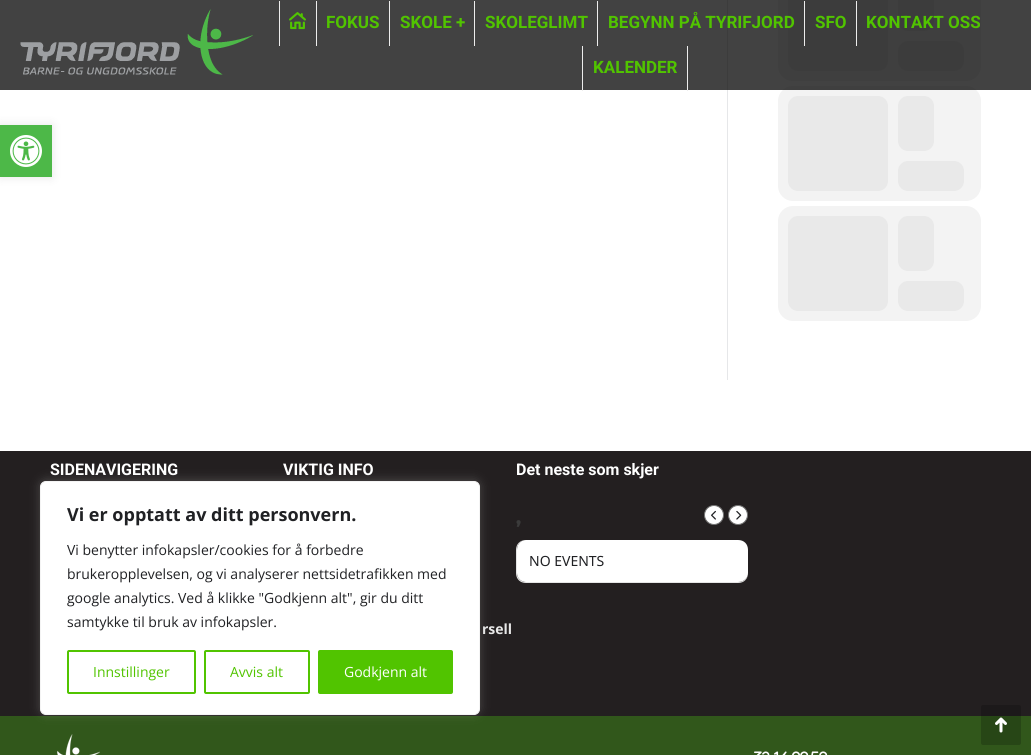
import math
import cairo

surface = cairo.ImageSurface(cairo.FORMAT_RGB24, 1031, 755)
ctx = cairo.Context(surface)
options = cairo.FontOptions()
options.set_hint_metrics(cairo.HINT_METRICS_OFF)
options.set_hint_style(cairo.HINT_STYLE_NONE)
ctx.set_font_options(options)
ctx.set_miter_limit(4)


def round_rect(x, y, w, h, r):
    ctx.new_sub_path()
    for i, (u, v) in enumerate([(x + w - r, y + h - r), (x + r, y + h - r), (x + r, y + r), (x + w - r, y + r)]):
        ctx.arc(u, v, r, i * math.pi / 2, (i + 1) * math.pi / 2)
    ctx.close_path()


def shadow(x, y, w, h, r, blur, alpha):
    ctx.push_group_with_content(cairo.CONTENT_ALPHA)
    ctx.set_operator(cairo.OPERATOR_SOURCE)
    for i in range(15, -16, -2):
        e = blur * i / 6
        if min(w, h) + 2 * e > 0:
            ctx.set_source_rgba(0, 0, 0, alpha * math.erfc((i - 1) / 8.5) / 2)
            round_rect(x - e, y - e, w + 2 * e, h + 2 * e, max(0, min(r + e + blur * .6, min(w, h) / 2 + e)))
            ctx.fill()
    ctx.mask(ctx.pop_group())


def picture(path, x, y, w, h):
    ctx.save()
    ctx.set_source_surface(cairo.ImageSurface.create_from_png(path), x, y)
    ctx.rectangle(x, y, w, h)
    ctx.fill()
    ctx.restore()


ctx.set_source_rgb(1, 1, 1)
ctx.paint()
ctx.set_source_rgb(0.902, 0.906, 0.914)
ctx.rectangle(727, 0, 1, 380)
ctx.fill()
ctx.set_source_rgb(0.953, 0.953, 0.953)
round_rect(778, -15, 203, 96, 15)
ctx.fill()
ctx.set_source_rgb(0.914, 0.914, 0.914)
round_rect(788, -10, 100, 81, 10)
ctx.fill()
round_rect(898, -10, 36, 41, 10)
ctx.fill()
round_rect(898, 41, 66, 30, 10)
ctx.fill()
ctx.set_source_rgb(0.953, 0.953, 0.953)
round_rect(778, 86, 203, 115, 15)
ctx.fill()
ctx.set_source_rgba(0, 0, 0, 0.74)
ctx.rectangle(0, 0, 1031, 90)
ctx.fill()
picture("img1.png", 20, 9, 233, 66)
ctx.set_source_rgb(0.929, 0.929, 0.929)
ctx.rectangle(279, 1, 1, 45)
ctx.fill()
picture("img2.png", 289, 12, 17, 18)
ctx.rectangle(316, 1, 1, 45)
ctx.fill()
ctx.select_font_face("Roboto", cairo.FONT_SLANT_NORMAL, cairo.FONT_WEIGHT_BOLD)
ctx.set_font_size(17)
ctx.set_source_rgb(0.318, 0.769, 0)
ctx.move_to(326, 28)
ctx.show_text("FOKUS")
ctx.set_source_rgb(0.929, 0.929, 0.929)
ctx.rectangle(389, 1, 1, 45)
ctx.fill()
ctx.set_source_rgb(0.318, 0.769, 0)
ctx.move_to(400, 28)
ctx.show_text("SKOLE +")
ctx.set_source_rgb(0.929, 0.929, 0.929)
ctx.rectangle(474, 1, 1, 45)
ctx.fill()
ctx.set_source_rgb(0.318, 0.769, 0)
ctx.move_to(485, 28)
ctx.show_text("SKOLEGLIMT")
ctx.set_source_rgb(0.929, 0.929, 0.929)
ctx.rectangle(597, 1, 1, 45)
ctx.fill()
ctx.set_source_rgb(0.318, 0.769, 0)
ctx.move_to(608, 28)
ctx.show_text("BEGYNN PÅ TYRIFJORD")
ctx.set_source_rgb(0.929, 0.929, 0.929)
ctx.rectangle(804, 1, 1, 45)
ctx.fill()
ctx.set_source_rgb(0.318, 0.769, 0)
ctx.move_to(815, 28)
ctx.show_text("SFO")
ctx.set_source_rgb(0.929, 0.929, 0.929)
ctx.rectangle(856, 1, 1, 45)
ctx.fill()
ctx.set_source_rgb(0.318, 0.769, 0)
ctx.move_to(866, 28)
ctx.show_text("KONTAKT OSS")
ctx.set_source_rgb(0.929, 0.929, 0.929)
ctx.rectangle(582, 46, 1, 45)
ctx.fill()
ctx.set_source_rgb(0.318, 0.769, 0)
ctx.move_to(593, 73)
ctx.show_text("KALENDER")
ctx.set_source_rgb(0.929, 0.929, 0.929)
ctx.rectangle(687, 46, 1, 45)
ctx.fill()
ctx.set_source_rgb(0, 0, 0)
shadow(0, 125, 52, 52, 0, 5, 0.1)
ctx.set_source_rgb(0.302, 0.722, 0.282)
ctx.rectangle(0, 125, 52, 52)
ctx.fill()
picture("img3.png", 10, 135, 32, 32)
ctx.set_source_rgb(0.914, 0.914, 0.914)
round_rect(788, 96, 100, 95, 10)
ctx.fill()
round_rect(898, 96, 36, 55, 10)
ctx.fill()
round_rect(898, 161, 66, 30, 10)
ctx.fill()
ctx.set_source_rgb(0.953, 0.953, 0.953)
round_rect(778, 206, 203, 115, 15)
ctx.fill()
ctx.set_source_rgb(0.914, 0.914, 0.914)
round_rect(788, 216, 100, 95, 10)
ctx.fill()
round_rect(898, 216, 36, 55, 10)
ctx.fill()
round_rect(898, 281, 66, 30, 10)
ctx.fill()
ctx.set_source_rgb(0.137, 0.122, 0.125)
ctx.rectangle(0, 451, 1031, 265)
ctx.fill()
ctx.set_font_size(16)
ctx.set_source_rgb(1, 1, 1)
ctx.move_to(50, 475)
ctx.show_text("SIDENAVIGERING")
ctx.move_to(283, 475)
ctx.show_text("VIKTIG INFO")
ctx.select_font_face("Open Sans", cairo.FONT_SLANT_NORMAL, cairo.FONT_WEIGHT_BOLD)
ctx.set_font_size(14)
ctx.set_source_rgb(0.91, 0.91, 0.91)
ctx.move_to(482, 634)
ctx.show_text("rsell")
ctx.select_font_face("Roboto", cairo.FONT_SLANT_NORMAL, cairo.FONT_WEIGHT_BOLD)
ctx.set_font_size(16)
ctx.set_source_rgb(1, 1, 1)
ctx.move_to(516, 475)
ctx.show_text("Det neste som skjer")
ctx.select_font_face("Montserrat ExtraBold")
ctx.set_font_size(18)
ctx.set_source_rgb(0.231, 0.231, 0.231)
ctx.move_to(516, 524)
ctx.show_text(",")
ctx.set_source_rgb(1, 1, 1)
ctx.new_path()
ctx.arc(714, 515, 9.5, 0, 2 * math.pi)
ctx.fill_preserve()
ctx.set_source_rgb(0.451, 0.451, 0.451)
ctx.set_line_width(1)
ctx.stroke()
picture("img4.png", 711, 510, 5, 10)
ctx.set_source_rgb(1, 1, 1)
ctx.arc(738, 515, 9.5, 0, 2 * math.pi)
ctx.fill_preserve()
ctx.set_source_rgb(0.451, 0.451, 0.451)
ctx.stroke()
picture("img5.png", 736, 510, 6, 10)
ctx.set_source_rgb(0.898, 0.898, 0.898)
ctx.set_fill_rule(cairo.FILL_RULE_EVEN_ODD)
ctx.new_path()
ctx.move_to(526, 540)
ctx.line_to(738, 540)
ctx.curve_to(744, 540, 748, 544, 748, 550)
ctx.line_to(748, 573)
ctx.curve_to(748, 579, 744, 583, 738, 583)
ctx.line_to(526, 583)
ctx.curve_to(520, 583, 516, 579, 516, 573)
ctx.line_to(516, 550)
ctx.curve_to(516, 544, 520, 540, 526, 540)
ctx.close_path()
ctx.move_to(526, 540)
ctx.line_to(738, 540)
ctx.curve_to(744, 540, 748, 544, 748, 550)
ctx.line_to(748, 573)
ctx.curve_to(748, 578, 744, 582, 738, 582)
ctx.line_to(526, 582)
ctx.curve_to(521, 582, 517, 578, 517, 573)
ctx.line_to(517, 550)
ctx.curve_to(517, 544, 521, 540, 526, 540)
ctx.close_path()
ctx.fill()
ctx.set_source_rgb(1, 1, 1)
ctx.set_fill_rule(cairo.FILL_RULE_WINDING)
ctx.new_path()
ctx.move_to(526, 540)
ctx.curve_to(521, 540, 517, 544, 517, 550)
ctx.line_to(517, 573)
ctx.curve_to(517, 578, 521, 582, 526, 582)
ctx.line_to(738, 582)
ctx.curve_to(744, 582, 748, 578, 748, 573)
ctx.line_to(748, 550)
ctx.curve_to(748, 544, 744, 540, 738, 540)
ctx.close_path()
ctx.fill()
ctx.select_font_face("Noto Sans")
ctx.set_font_size(14)
ctx.set_source_rgb(0.125, 0.129, 0.141)
ctx.move_to(529, 566)
ctx.show_text("NO EVENTS")
ctx.set_source_rgb(0.192, 0.341, 0.106)
ctx.rectangle(0, 716, 1031, 39)
ctx.fill()
picture("img6.png", 57, 734, 43, 21)
picture("img7.png", 754, 751, 16, 4)
picture("img8.png", 774, 751, 13, 4)
picture("img9.png", 792, 751, 17, 4)
picture("img10.png", 811, 751, 17, 4)
ctx.set_source_rgba(0, 0, 0, 0.2)
round_rect(981, 705, 40, 40, 2)
ctx.fill()
picture("img11.png", 995, 717, 12, 16)
ctx.set_source_rgb(0.675, 0.671, 0.671)
shadow(40, 480, 440, 234, 6, 5, 0.3)
ctx.set_source_rgb(1, 1, 1)
round_rect(40.5, 481.5, 439, 233, 5.5)
ctx.fill_preserve()
ctx.set_source_rgb(0.957, 0.957, 0.957)
ctx.stroke()
ctx.select_font_face("Open Sans", cairo.FONT_SLANT_NORMAL, cairo.FONT_WEIGHT_BOLD)
ctx.set_font_size(18)
ctx.set_source_rgb(0.125, 0.129, 0.141)
ctx.move_to(67, 521)
ctx.show_text("Vi er opptatt av ditt personvern.")
ctx.select_font_face("Open Sans")
ctx.set_font_size(14)
ctx.move_to(67, 555)
ctx.show_text("Vi benytter infokapsler/cookies for å forbedre")
ctx.move_to(67, 579)
ctx.show_text("brukeropplevelsen, og vi analyserer nettsidetrafikken med")
ctx.move_to(67, 603)
ctx.show_text("google analytics. Ved å klikke \"Godkjenn alt\", gir du ditt")
ctx.move_to(67, 627)
ctx.show_text("samtykke til bruk av infokapsler.")
round_rect(68, 651, 127, 42, 1)
ctx.set_source_rgb(0.318, 0.769, 0)
ctx.set_line_width(2)
ctx.stroke()
ctx.move_to(93, 677)
ctx.show_text("Innstillinger")
round_rect(205, 651, 104, 42, 1)
ctx.stroke()
ctx.move_to(230, 677)
ctx.show_text("Avvis alt")
round_rect(319, 651, 133, 42, 1)
ctx.fill_preserve()
ctx.stroke()
ctx.set_source_rgb(1, 1, 1)
ctx.move_to(344, 677)
ctx.show_text("Godkjenn alt")
surface.write_to_png("page.png")
